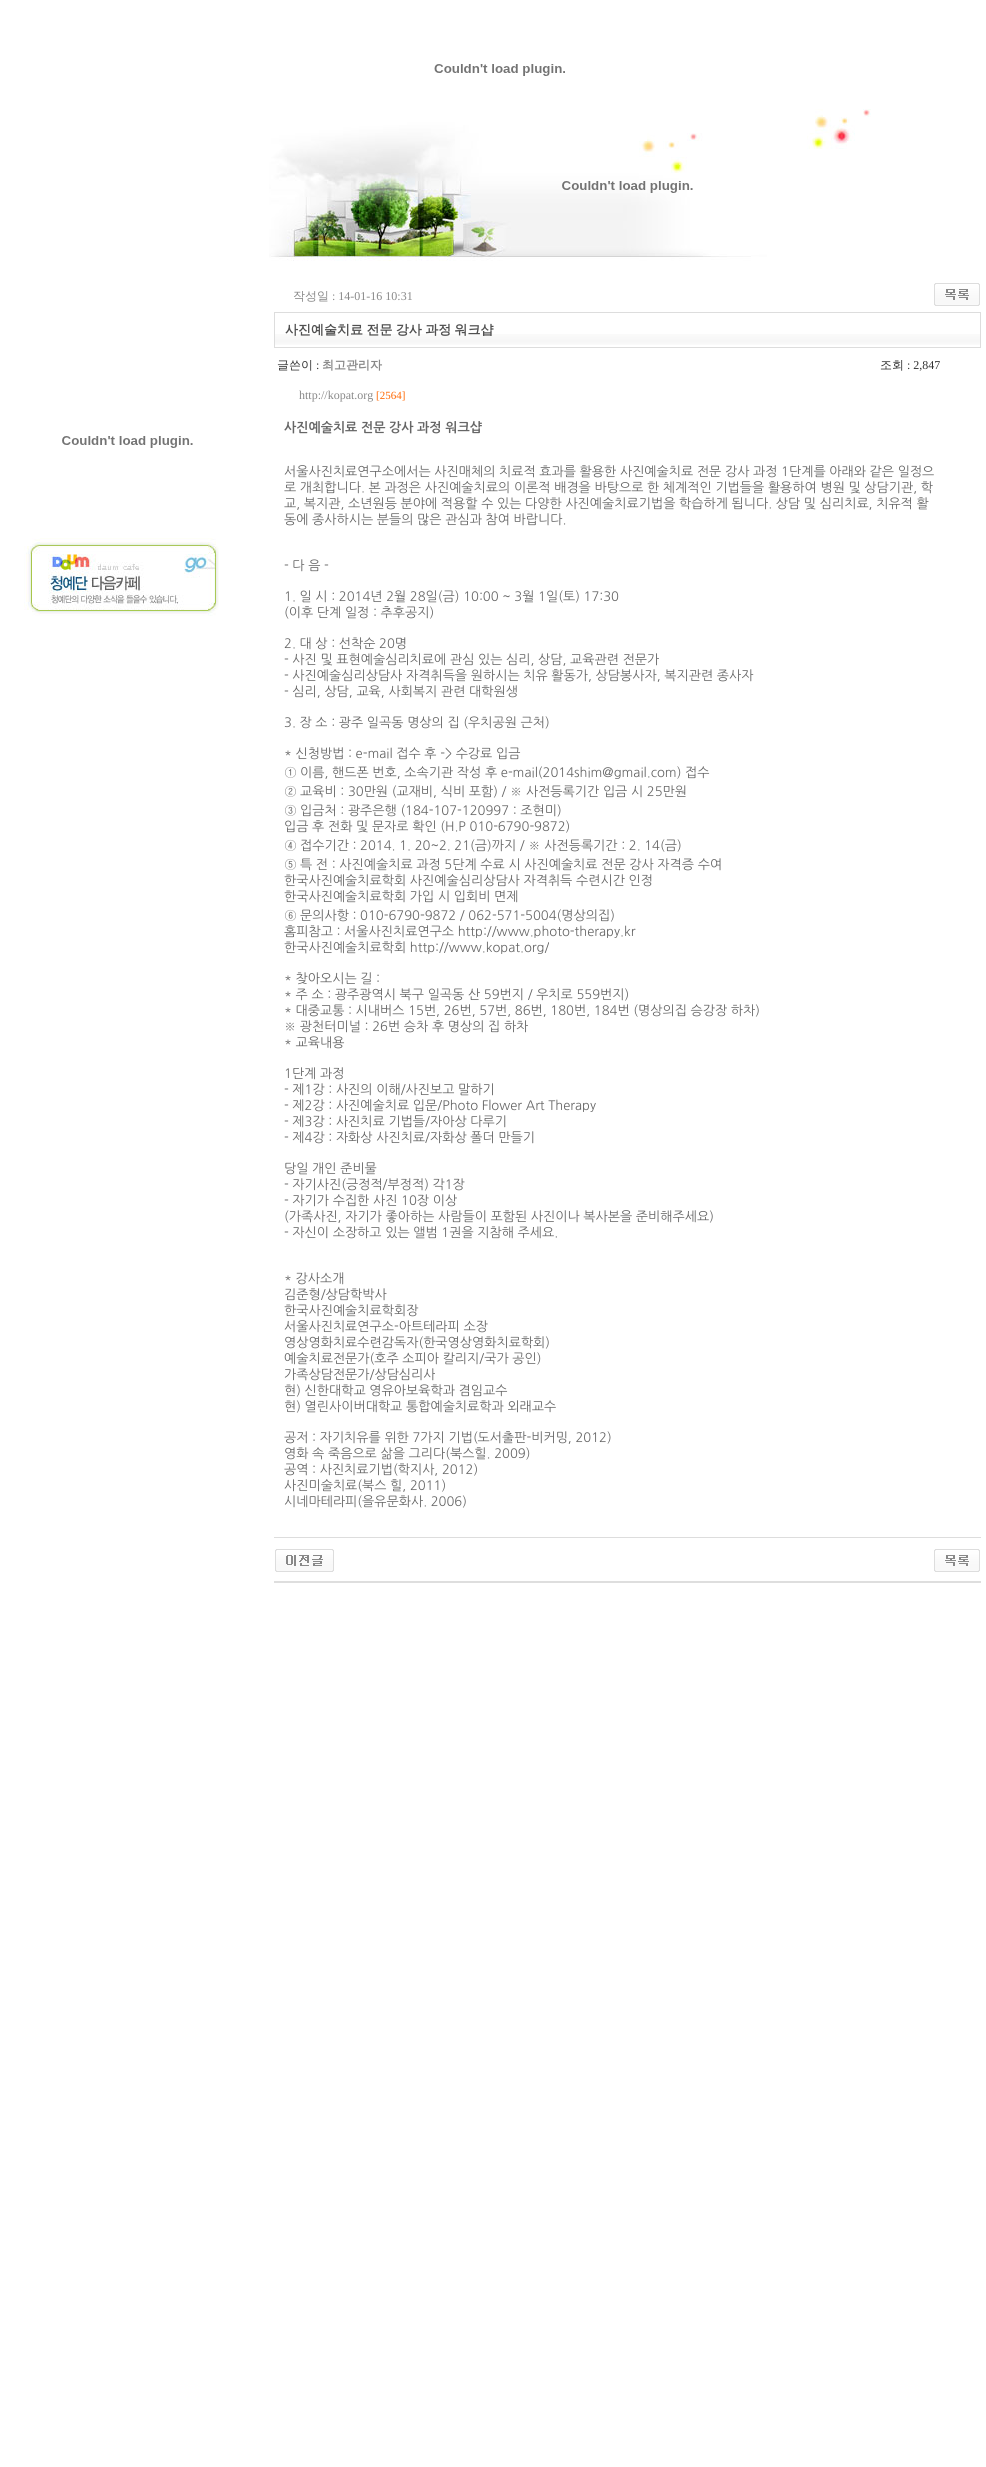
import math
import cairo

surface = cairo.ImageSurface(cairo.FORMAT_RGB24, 986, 2467)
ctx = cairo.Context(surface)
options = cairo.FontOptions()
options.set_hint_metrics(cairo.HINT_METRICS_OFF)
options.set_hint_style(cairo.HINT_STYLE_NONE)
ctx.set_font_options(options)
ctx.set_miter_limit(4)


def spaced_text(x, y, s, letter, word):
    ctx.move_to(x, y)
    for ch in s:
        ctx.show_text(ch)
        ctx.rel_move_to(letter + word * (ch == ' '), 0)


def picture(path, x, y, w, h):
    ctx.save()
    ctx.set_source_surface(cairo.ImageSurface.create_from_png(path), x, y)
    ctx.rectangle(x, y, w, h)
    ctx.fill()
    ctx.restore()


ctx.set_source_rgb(1, 1, 1)
ctx.paint()
picture("img1.png", 434, 64, 131, 12)
picture("img2.png", 62, 436, 131, 12)
picture("img3.png", 24, 538, 195, 78)
picture("img4.png", 269, 109, 602, 152)
picture("img5.png", 562, 181, 131, 12)
ctx.select_font_face("WenQuanYi Zen Hei Medium")
ctx.set_font_size(12)
ctx.set_source_rgb(0.533, 0.533, 0.533)
ctx.move_to(293, 300)
ctx.show_text("작성일")
ctx.select_font_face("Liberation Serif")
ctx.move_to(332, 300)
ctx.show_text(": 14-01-16 10:31")
picture("img6.png", 934, 283, 46, 23)
picture("img7.png", 275, 334, 705, 11)
ctx.rectangle(274.5, 312.5, 706, 35)
ctx.set_source_rgb(0.867, 0.867, 0.867)
ctx.set_line_width(1)
ctx.stroke()
ctx.select_font_face("WenQuanYi Zen Hei", cairo.FONT_SLANT_NORMAL, cairo.FONT_WEIGHT_BOLD)
ctx.set_font_size(13)
ctx.set_source_rgb(0.314, 0.314, 0.314)
spaced_text(285, 334, "사진예술치료 전문 강사 과정 워크샵", 0, -0.5)
ctx.select_font_face("WenQuanYi Zen Hei Medium")
ctx.set_font_size(12)
ctx.set_source_rgb(0.2, 0.2, 0.2)
ctx.move_to(277, 369)
ctx.show_text("글쓴이")
ctx.select_font_face("Liberation Serif")
ctx.move_to(316, 369)
ctx.show_text(":")
ctx.select_font_face("WenQuanYi Zen Hei", cairo.FONT_SLANT_NORMAL, cairo.FONT_WEIGHT_BOLD)
ctx.set_source_rgb(0.533, 0.533, 0.533)
ctx.move_to(322, 369)
ctx.show_text("최고관리자")
ctx.select_font_face("WenQuanYi Zen Hei Medium")
ctx.set_source_rgb(0.2, 0.2, 0.2)
ctx.move_to(880, 369)
ctx.show_text("조회")
ctx.select_font_face("Liberation Serif")
ctx.move_to(907, 369)
ctx.show_text(": 2,847")
ctx.set_source_rgb(0.533, 0.533, 0.533)
ctx.move_to(299, 399)
ctx.show_text("http://kopat.org")
ctx.set_font_size(11)
ctx.set_source_rgb(1, 0.4, 0)
ctx.move_to(376, 399)
ctx.show_text("[2564]")
ctx.select_font_face("NanumGothic", cairo.FONT_SLANT_NORMAL, cairo.FONT_WEIGHT_BOLD)
ctx.set_font_size(13)
ctx.set_source_rgb(0.4, 0.4, 0.4)
ctx.move_to(284, 432)
ctx.show_text("사진예술치료 전문 강사 과정 워크샵")
ctx.select_font_face("NanumGothic")
ctx.move_to(284, 476)
ctx.show_text("서울사진치료연구소에서는 사진매체의 치료적 효과를 활용한 사진예술치료 전문 강사 과정 1단계를 아래와 같은 일정으")
ctx.move_to(284, 492)
ctx.show_text("로 개최합니다. 본 과정은 사진예술치료의 이론적 배경을 바탕으로 한 체계적인 기법들을 활용하여 병원 및 상담기관, 학")
ctx.move_to(284, 508)
ctx.show_text("교, 복지관, 소년원등 분야에 적용할 수 있는 다양한 사진예술치료기법을 학습하게 됩니다. 상담 및 심리치료, 치유적 활")
ctx.move_to(284, 524)
ctx.show_text("동에 종사하시는 분들의 많은 관심과 참여 바랍니다.")
ctx.move_to(284, 570)
ctx.show_text("- 다 음 -")
ctx.move_to(284, 601)
ctx.show_text("1. 일 시 : 2014년 2월 28일(금) 10:00 ~ 3월 1일(토) 17:30")
ctx.move_to(284, 617)
ctx.show_text("(이후 단계 일정 : 추후공지)")
ctx.move_to(284, 648)
ctx.show_text("2. 대 상 : 선착순 20명")
ctx.move_to(284, 664)
ctx.show_text("- 사진 및 표현예술심리치료에 관심 있는 심리, 상담, 교육관련 전문가")
ctx.move_to(284, 680)
ctx.show_text("- 사진예술심리상담사 자격취득을 원하시는 치유 활동가, 상담봉사자, 복지관련 종사자")
ctx.move_to(284, 696)
ctx.show_text("- 심리, 상담, 교육, 사회복지 관련 대학원생")
ctx.move_to(284, 727)
ctx.show_text("3. 장 소 : 광주 일곡동 명상의 집 (우치공원 근처)")
ctx.move_to(284, 758)
ctx.show_text("* 신청방법 : e-mail 접수 후 -> 수강료 입금")
ctx.select_font_face("Dotum")
ctx.move_to(284, 777)
ctx.show_text("①")
ctx.select_font_face("NanumGothic")
ctx.move_to(300, 777)
ctx.show_text("이름, 핸드폰 번호, 소속기관 작성 후 e-mail(2014shim@gmail.com) 접수")
ctx.select_font_face("Dotum")
ctx.move_to(284, 796)
ctx.show_text("②")
ctx.select_font_face("NanumGothic")
ctx.move_to(300, 796)
ctx.show_text("교육비 : 30만원 (교재비, 식비 포함) / ※ 사전등록기간 입금 시 25만원")
ctx.select_font_face("Dotum")
ctx.move_to(284, 815)
ctx.show_text("③")
ctx.select_font_face("NanumGothic")
ctx.move_to(300, 815)
ctx.show_text("입금처 : 광주은행 (184-107-120997 : 조현미)")
ctx.move_to(284, 831)
ctx.show_text("입금 후 전화 및 문자로 확인 (H.P 010-6790-9872)")
ctx.select_font_face("Dotum")
ctx.move_to(284, 850)
ctx.show_text("④")
ctx.select_font_face("NanumGothic")
ctx.move_to(300, 850)
ctx.show_text("접수기간 : 2014. 1. 20~2. 21(금)까지 / ※ 사전등록기간 : 2. 14(금)")
ctx.select_font_face("Dotum")
ctx.move_to(284, 869)
ctx.show_text("⑤")
ctx.select_font_face("NanumGothic")
ctx.move_to(300, 869)
ctx.show_text("특 전 : 사진예술치료 과정 5단계 수료 시 사진예술치료 전문 강사 자격증 수여")
ctx.move_to(284, 885)
ctx.show_text("한국사진예술치료학회 사진예술심리상담사 자격취득 수련시간 인정")
ctx.move_to(284, 901)
ctx.show_text("한국사진예술치료학회 가입 시 입회비 면제")
ctx.select_font_face("Dotum")
ctx.move_to(284, 920)
ctx.show_text("⑥")
ctx.select_font_face("NanumGothic")
ctx.move_to(300, 920)
ctx.show_text("문의사항 : 010-6790-9872 / 062-571-5004(명상의집)")
ctx.move_to(284, 936)
ctx.show_text("홈피참고 : 서울사진치료연구소 http://www.photo-therapy.kr")
ctx.move_to(284, 952)
ctx.show_text("한국사진예술치료학회 http://www.kopat.org/")
ctx.move_to(284, 983)
ctx.show_text("* 찾아오시는 길 :")
ctx.move_to(284, 999)
ctx.show_text("* 주 소 : 광주광역시 북구 일곡동 산 59번지 / 우치로 559번지)")
ctx.move_to(284, 1015)
ctx.show_text("* 대중교통 : 시내버스 15번, 26번, 57번, 86번, 180번, 184번 (명상의집 승강장 하차)")
ctx.move_to(284, 1031)
ctx.show_text("※ 광천터미널 : 26번 승차 후 명상의 집 하차")
ctx.move_to(284, 1047)
ctx.show_text("* 교육내용")
ctx.move_to(284, 1078)
ctx.show_text("1단계 과정")
ctx.move_to(284, 1094)
ctx.show_text("- 제1강 : 사진의 이해/사진보고 말하기")
ctx.move_to(284, 1110)
ctx.show_text("- 제2강 : 사진예술치료 입문/Photo Flower Art Therapy")
ctx.move_to(284, 1126)
ctx.show_text("- 제3강 : 사진치료 기법들/자아상 다루기")
ctx.move_to(284, 1142)
ctx.show_text("- 제4강 : 자화상 사진치료/자화상 폴더 만들기")
ctx.move_to(284, 1173)
ctx.show_text("당일 개인 준비물")
ctx.move_to(284, 1189)
ctx.show_text("- 자기사진(긍정적/부정적) 각1장")
ctx.move_to(284, 1205)
ctx.show_text("- 자기가 수집한 사진 10장 이상")
ctx.move_to(284, 1221)
ctx.show_text("(가족사진, 자기가 좋아하는 사람들이 포함된 사진이나 복사본을 준비해주세요)")
ctx.move_to(284, 1237)
ctx.show_text("- 자신이 소장하고 있는 앨범 1권을 지참해 주세요.")
ctx.move_to(284, 1283)
ctx.show_text("* 강사소개")
ctx.move_to(284, 1299)
ctx.show_text("김준형/상담학박사")
ctx.move_to(284, 1315)
ctx.show_text("한국사진예술치료학회장")
ctx.move_to(284, 1331)
ctx.show_text("서울사진치료연구소-아트테라피 소장")
ctx.move_to(284, 1347)
ctx.show_text("영상영화치료수련감독자(한국영상영화치료학회)")
ctx.move_to(284, 1363)
ctx.show_text("예술치료전문가(호주 소피아 칼리지/국가 공인)")
ctx.move_to(284, 1379)
ctx.show_text("가족상담전문가/상담심리사")
ctx.move_to(284, 1395)
ctx.show_text("현) 신한대학교 영유아보육학과 겸임교수")
ctx.move_to(284, 1411)
ctx.show_text("현) 열린사이버대학교 통합예술치료학과 외래교수")
ctx.move_to(284, 1442)
ctx.show_text("공저 : 자기치유를 위한 7가지 기법(도서출판-비커밍, 2012)")
ctx.move_to(284, 1458)
ctx.show_text("영화 속 죽음으로 삶을 그리다(북스힐. 2009)")
ctx.move_to(284, 1474)
ctx.show_text("공역 : 사진치료기법(학지사, 2012)")
ctx.move_to(284, 1490)
ctx.show_text("사진미술치료(북스 힐, 2011)")
ctx.move_to(284, 1506)
ctx.show_text("시네마테라피(을유문화사. 2006)")
ctx.set_source_rgb(0.867, 0.867, 0.867)
ctx.rectangle(274, 1537, 707, 1)
ctx.fill()
picture("img8.png", 275, 1549, 59, 23)
picture("img6.png", 934, 1549, 46, 23)
ctx.set_source_rgb(0.871, 0.871, 0.871)
ctx.rectangle(274, 1581, 707, 2)
ctx.fill()
surface.write_to_png("page.png")
